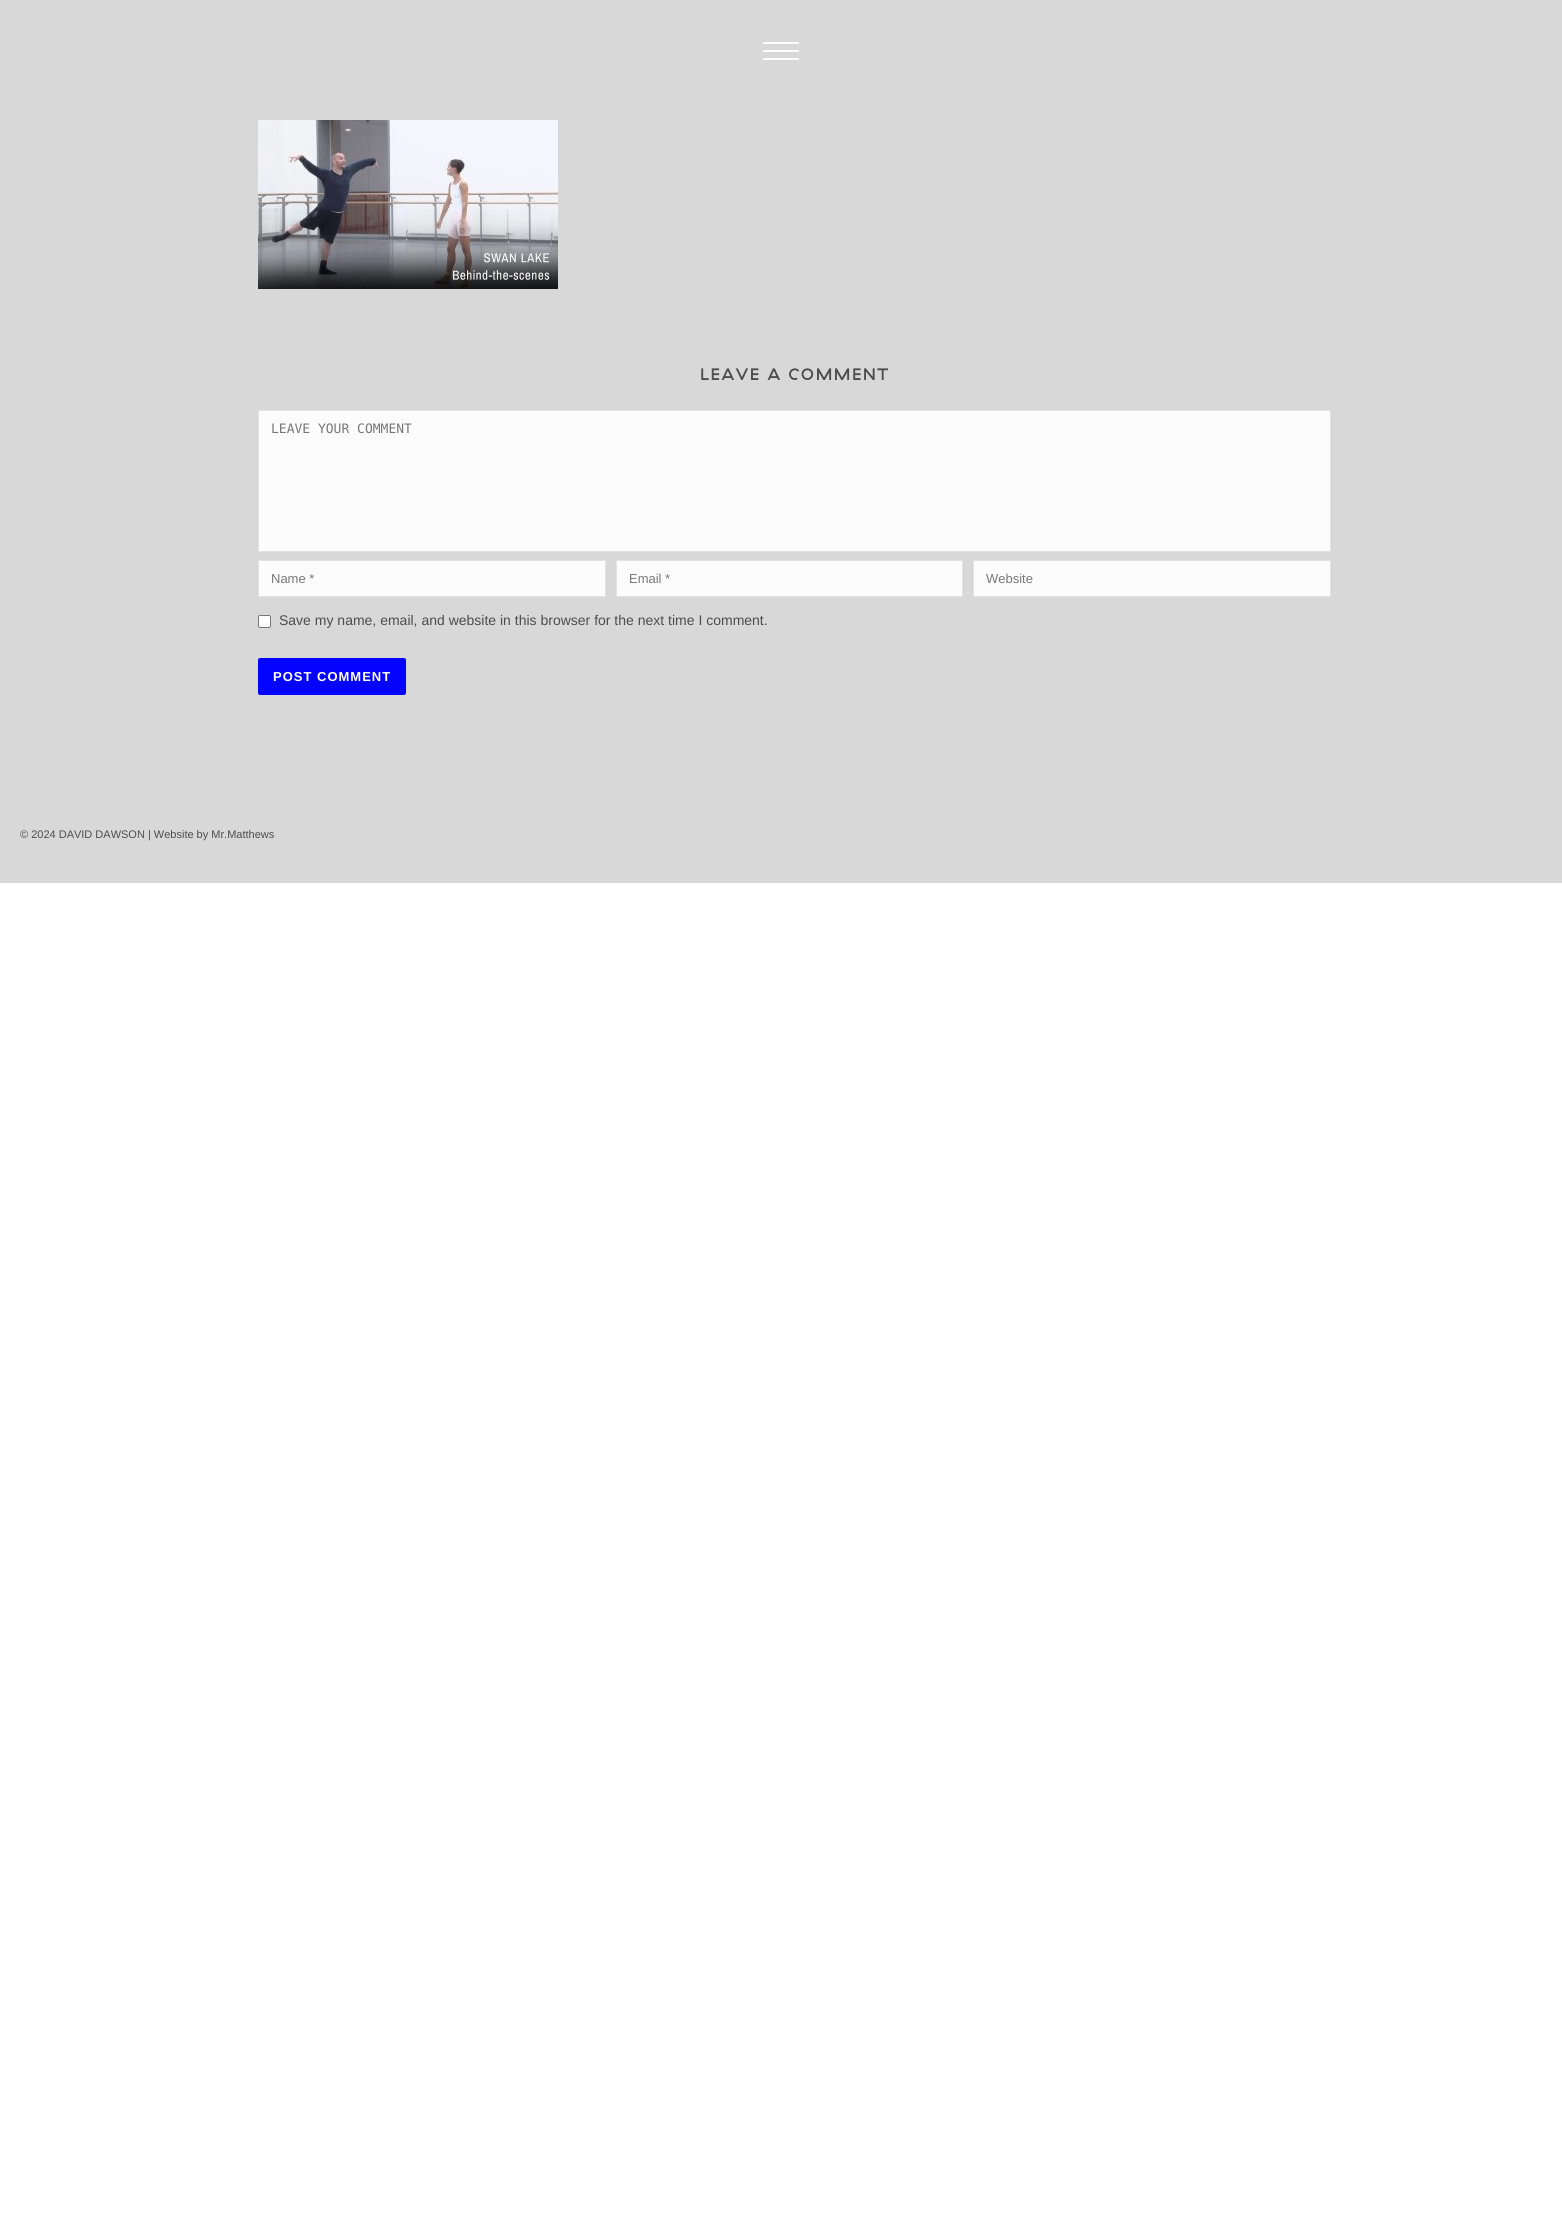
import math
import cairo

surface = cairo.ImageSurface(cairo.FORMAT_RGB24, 1562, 2222)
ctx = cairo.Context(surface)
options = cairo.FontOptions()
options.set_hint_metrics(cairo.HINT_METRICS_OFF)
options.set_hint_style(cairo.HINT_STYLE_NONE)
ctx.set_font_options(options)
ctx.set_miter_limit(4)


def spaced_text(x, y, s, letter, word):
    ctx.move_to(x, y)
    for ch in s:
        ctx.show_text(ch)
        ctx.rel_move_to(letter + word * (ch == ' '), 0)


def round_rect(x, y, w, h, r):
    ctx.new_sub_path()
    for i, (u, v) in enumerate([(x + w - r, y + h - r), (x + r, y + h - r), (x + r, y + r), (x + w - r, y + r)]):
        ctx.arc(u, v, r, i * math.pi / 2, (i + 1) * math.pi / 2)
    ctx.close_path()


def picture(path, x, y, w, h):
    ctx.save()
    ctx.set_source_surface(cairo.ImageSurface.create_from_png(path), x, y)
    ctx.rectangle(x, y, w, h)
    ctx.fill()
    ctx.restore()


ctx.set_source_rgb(0.996, 0.996, 0.996)
ctx.paint()
ctx.set_source_rgb(0.847, 0.847, 0.847)
ctx.rectangle(0, 0, 1562, 70)
ctx.fill()
ctx.set_source_rgb(0.996, 0.996, 0.996)
ctx.rectangle(763, 50, 36, 2)
ctx.fill()
ctx.rectangle(763, 42, 36, 2)
ctx.fill()
ctx.rectangle(763, 58, 36, 2)
ctx.fill()
ctx.set_source_rgb(0.847, 0.847, 0.847)
ctx.rectangle(0, 70, 1562, 813)
ctx.fill()
picture("img1.png", 258, 120, 300, 169)
ctx.select_font_face("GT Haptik", cairo.FONT_SLANT_NORMAL, cairo.FONT_WEIGHT_BOLD)
ctx.set_font_size(16)
ctx.set_source_rgb(0.302, 0.302, 0.302)
spaced_text(700, 380, "LEAVE A COMMENT", 2, 0)
ctx.set_source_rgb(0.988, 0.988, 0.988)
ctx.rectangle(258.5, 410.5, 1072, 141)
ctx.fill_preserve()
ctx.set_source_rgb(0.89, 0.89, 0.89)
ctx.set_line_width(1)
ctx.stroke()
ctx.select_font_face("DejaVu Sans Mono")
ctx.set_font_size(13)
ctx.set_source_rgb(0.467, 0.467, 0.467)
ctx.move_to(271, 433)
ctx.show_text("LEAVE YOUR COMMENT")
ctx.set_source_rgb(0.988, 0.988, 0.988)
ctx.rectangle(258.5, 560.5, 347, 36)
ctx.fill_preserve()
ctx.set_source_rgb(0.89, 0.89, 0.89)
ctx.stroke()
ctx.select_font_face("Liberation Sans")
ctx.set_source_rgb(0.467, 0.467, 0.467)
ctx.move_to(271, 583)
ctx.show_text("Name *")
ctx.set_source_rgb(0.988, 0.988, 0.988)
ctx.rectangle(616.5, 560.5, 346, 36)
ctx.fill_preserve()
ctx.set_source_rgb(0.89, 0.89, 0.89)
ctx.stroke()
ctx.set_source_rgb(0.467, 0.467, 0.467)
ctx.move_to(629, 583)
ctx.show_text("Email *")
ctx.set_source_rgb(0.988, 0.988, 0.988)
ctx.rectangle(973.5, 560.5, 357, 36)
ctx.fill_preserve()
ctx.set_source_rgb(0.89, 0.89, 0.89)
ctx.stroke()
ctx.set_source_rgb(0.467, 0.467, 0.467)
ctx.move_to(986, 583)
ctx.show_text("Website")
ctx.set_source_rgb(0.996, 0.996, 0.996)
round_rect(258.5, 615.5, 12, 12, 1.5)
ctx.fill_preserve()
ctx.set_source_rgb(0.471, 0.471, 0.471)
ctx.stroke()
ctx.set_font_size(14)
ctx.set_source_rgb(0.302, 0.302, 0.302)
ctx.move_to(279, 625)
ctx.show_text("Save my name, email, and website in this browser for the next time I comment.")
ctx.set_source_rgb(0.016, 0.016, 0.996)
round_rect(258, 658, 148, 37, 2)
ctx.fill()
ctx.select_font_face("Liberation Sans", cairo.FONT_SLANT_NORMAL, cairo.FONT_WEIGHT_BOLD)
ctx.set_font_size(13)
ctx.set_source_rgb(0.996, 0.996, 0.996)
spaced_text(273, 681, "POST COMMENT", 1, 0)
ctx.select_font_face("Liberation Sans")
ctx.set_font_size(11)
ctx.set_source_rgb(0.302, 0.302, 0.302)
ctx.move_to(20, 838)
ctx.show_text("© 2024 DAVID DAWSON | Website by Mr.Matthews")
surface.write_to_png("page.png")
